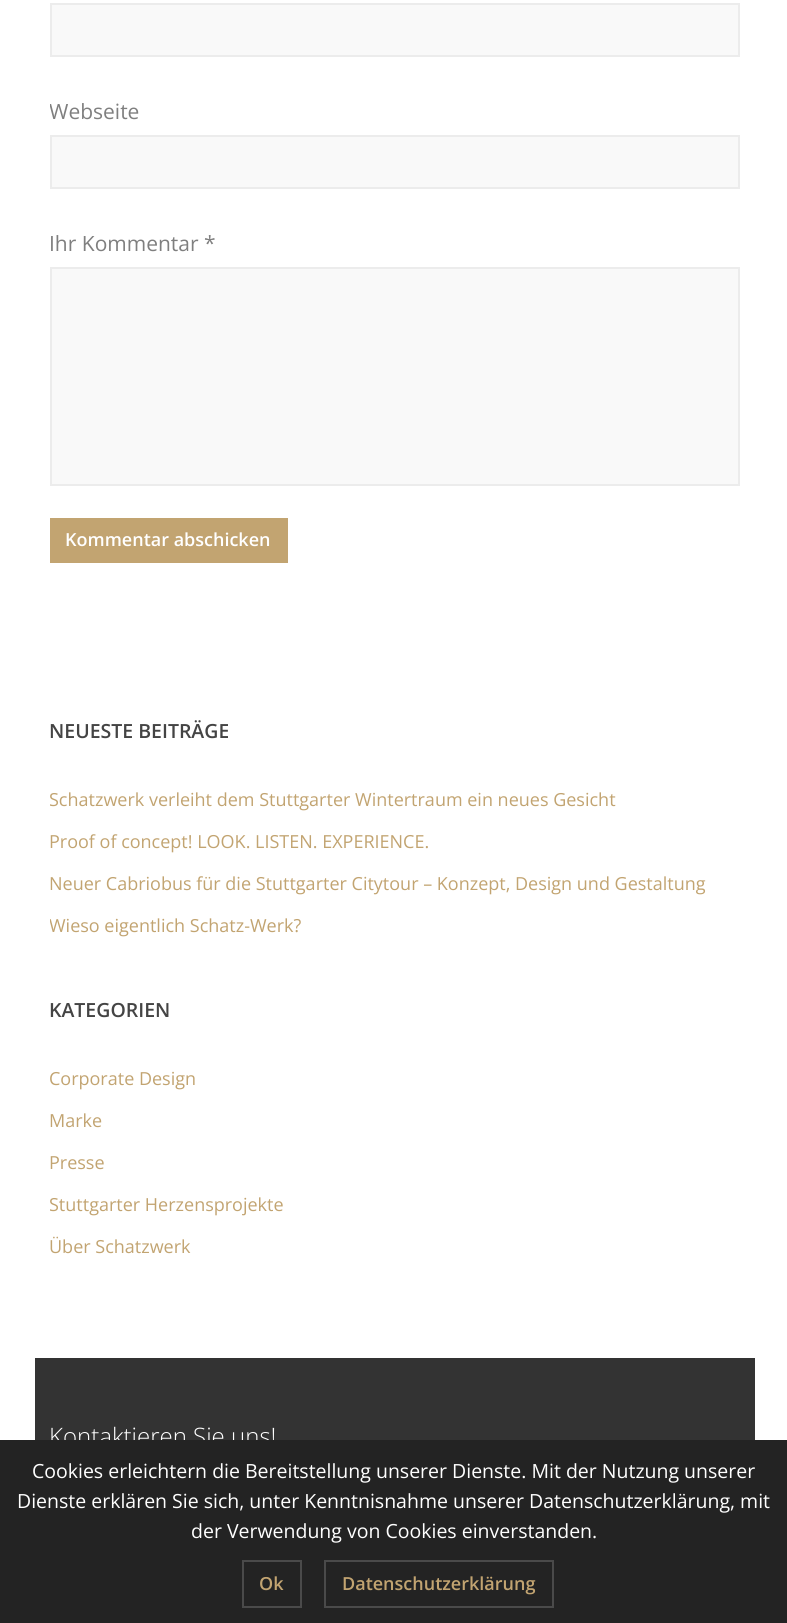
import math
import cairo

surface = cairo.ImageSurface(cairo.FORMAT_RGB24, 787, 1623)
ctx = cairo.Context(surface)
options = cairo.FontOptions()
options.set_hint_metrics(cairo.HINT_METRICS_OFF)
options.set_hint_style(cairo.HINT_STYLE_NONE)
ctx.set_font_options(options)
ctx.set_miter_limit(4)


ctx.set_source_rgb(1, 1, 1)
ctx.paint()
ctx.set_source_rgb(0.976, 0.976, 0.976)
ctx.rectangle(51, 4, 688, 52)
ctx.fill_preserve()
ctx.set_source_rgb(0.922, 0.922, 0.922)
ctx.stroke()
ctx.save()
ctx.rectangle(50, 0, 690, 623)
ctx.clip()
ctx.select_font_face("Open Sans")
ctx.set_font_size(21)
ctx.set_source_rgb(0.498, 0.498, 0.498)
ctx.move_to(49, 119)
ctx.show_text("Webseite")
ctx.restore()
ctx.set_source_rgb(0.976, 0.976, 0.976)
ctx.rectangle(51, 136, 688, 52)
ctx.fill_preserve()
ctx.set_source_rgb(0.922, 0.922, 0.922)
ctx.stroke()
ctx.select_font_face("Open Sans")
ctx.set_font_size(21)
ctx.set_source_rgb(0.498, 0.498, 0.498)
ctx.move_to(49, 251)
ctx.show_text("Ihr Kommentar *")
ctx.set_source_rgb(0.976, 0.976, 0.976)
ctx.rectangle(51, 268, 688, 217)
ctx.fill_preserve()
ctx.set_source_rgb(0.922, 0.922, 0.922)
ctx.stroke()
ctx.set_source_rgb(0.761, 0.643, 0.443)
ctx.rectangle(50, 518, 238, 45)
ctx.fill()
ctx.select_font_face("Open Sans SemiBold")
ctx.set_font_size(18)
ctx.set_source_rgb(1, 1, 1)
ctx.move_to(65, 546)
ctx.show_text("Kommentar abschicken")
ctx.set_font_size(19.5)
ctx.set_source_rgb(0.267, 0.267, 0.267)
ctx.move_to(49, 738)
ctx.show_text("NEUESTE BEITRÄGE")
ctx.save()
ctx.rectangle(50, 713, 690, 234)
ctx.clip()
ctx.select_font_face("Open Sans")
ctx.set_font_size(18)
ctx.set_source_rgb(0.761, 0.643, 0.443)
ctx.move_to(49, 806)
ctx.show_text("Schatzwerk verleiht dem Stuttgarter Wintertraum ein neues Gesicht")
ctx.restore()
ctx.select_font_face("Open Sans")
ctx.set_font_size(18)
ctx.set_source_rgb(0.761, 0.643, 0.443)
ctx.move_to(49, 848)
ctx.show_text("Proof of concept! LOOK. LISTEN. EXPERIENCE.")
ctx.move_to(49, 890)
ctx.show_text("Neuer Cabriobus für die Stuttgarter Citytour – Konzept, Design und Gestaltung")
ctx.save()
ctx.rectangle(50, 713, 690, 234)
ctx.clip()
ctx.move_to(49, 932)
ctx.show_text("Wieso eigentlich Schatz-Werk?")
ctx.restore()
ctx.select_font_face("Open Sans SemiBold")
ctx.set_font_size(19.5)
ctx.set_source_rgb(0.267, 0.267, 0.267)
ctx.move_to(49, 1017)
ctx.show_text("KATEGORIEN")
ctx.save()
ctx.rectangle(50, 992, 690, 276)
ctx.clip()
ctx.select_font_face("Open Sans")
ctx.set_font_size(18)
ctx.set_source_rgb(0.761, 0.643, 0.443)
ctx.move_to(49, 1085)
ctx.show_text("Corporate Design")
ctx.restore()
ctx.select_font_face("Open Sans")
ctx.set_font_size(18)
ctx.set_source_rgb(0.761, 0.643, 0.443)
ctx.move_to(49, 1127)
ctx.show_text("Marke")
ctx.move_to(49, 1169)
ctx.show_text("Presse")
ctx.save()
ctx.rectangle(50, 992, 690, 276)
ctx.clip()
ctx.move_to(49, 1211)
ctx.show_text("Stuttgarter Herzensprojekte")
ctx.restore()
ctx.move_to(49, 1253)
ctx.show_text("Über Schatzwerk")
ctx.set_source_rgb(0.2, 0.2, 0.2)
ctx.rectangle(35, 1358, 720, 82)
ctx.fill()
ctx.select_font_face("Open Sans Light")
ctx.set_font_size(24)
ctx.set_source_rgb(1, 1, 1)
ctx.move_to(49, 1445)
ctx.show_text("Kontaktieren Sie uns!")
ctx.set_source_rgb(0.137, 0.137, 0.137)
ctx.rectangle(0, 1440, 787, 183)
ctx.fill()
ctx.select_font_face("Open Sans")
ctx.set_font_size(19.5)
ctx.set_source_rgb(1, 1, 1)
ctx.move_to(32, 1478)
ctx.show_text("Cookies erleichtern die Bereitstellung unserer Dienste. Mit der Nutzung unserer")
ctx.move_to(17, 1508)
ctx.show_text("Dienste erklären Sie sich, unter Kenntnisnahme unserer Datenschutzerklärung, mit")
ctx.move_to(191, 1538)
ctx.show_text("der Verwendung von Cookies einverstanden.")
ctx.rectangle(243, 1561, 58, 46)
ctx.set_source_rgb(0.29, 0.29, 0.29)
ctx.stroke()
ctx.select_font_face("Open Sans SemiBold")
ctx.set_font_size(18)
ctx.set_source_rgb(0.761, 0.643, 0.443)
ctx.move_to(259, 1590)
ctx.show_text("Ok")
ctx.rectangle(325, 1561, 228, 46)
ctx.set_source_rgb(0.29, 0.29, 0.29)
ctx.stroke()
ctx.set_source_rgb(0.761, 0.643, 0.443)
ctx.move_to(342, 1590)
ctx.show_text("Datenschutzerklärung")
surface.write_to_png("page.png")
